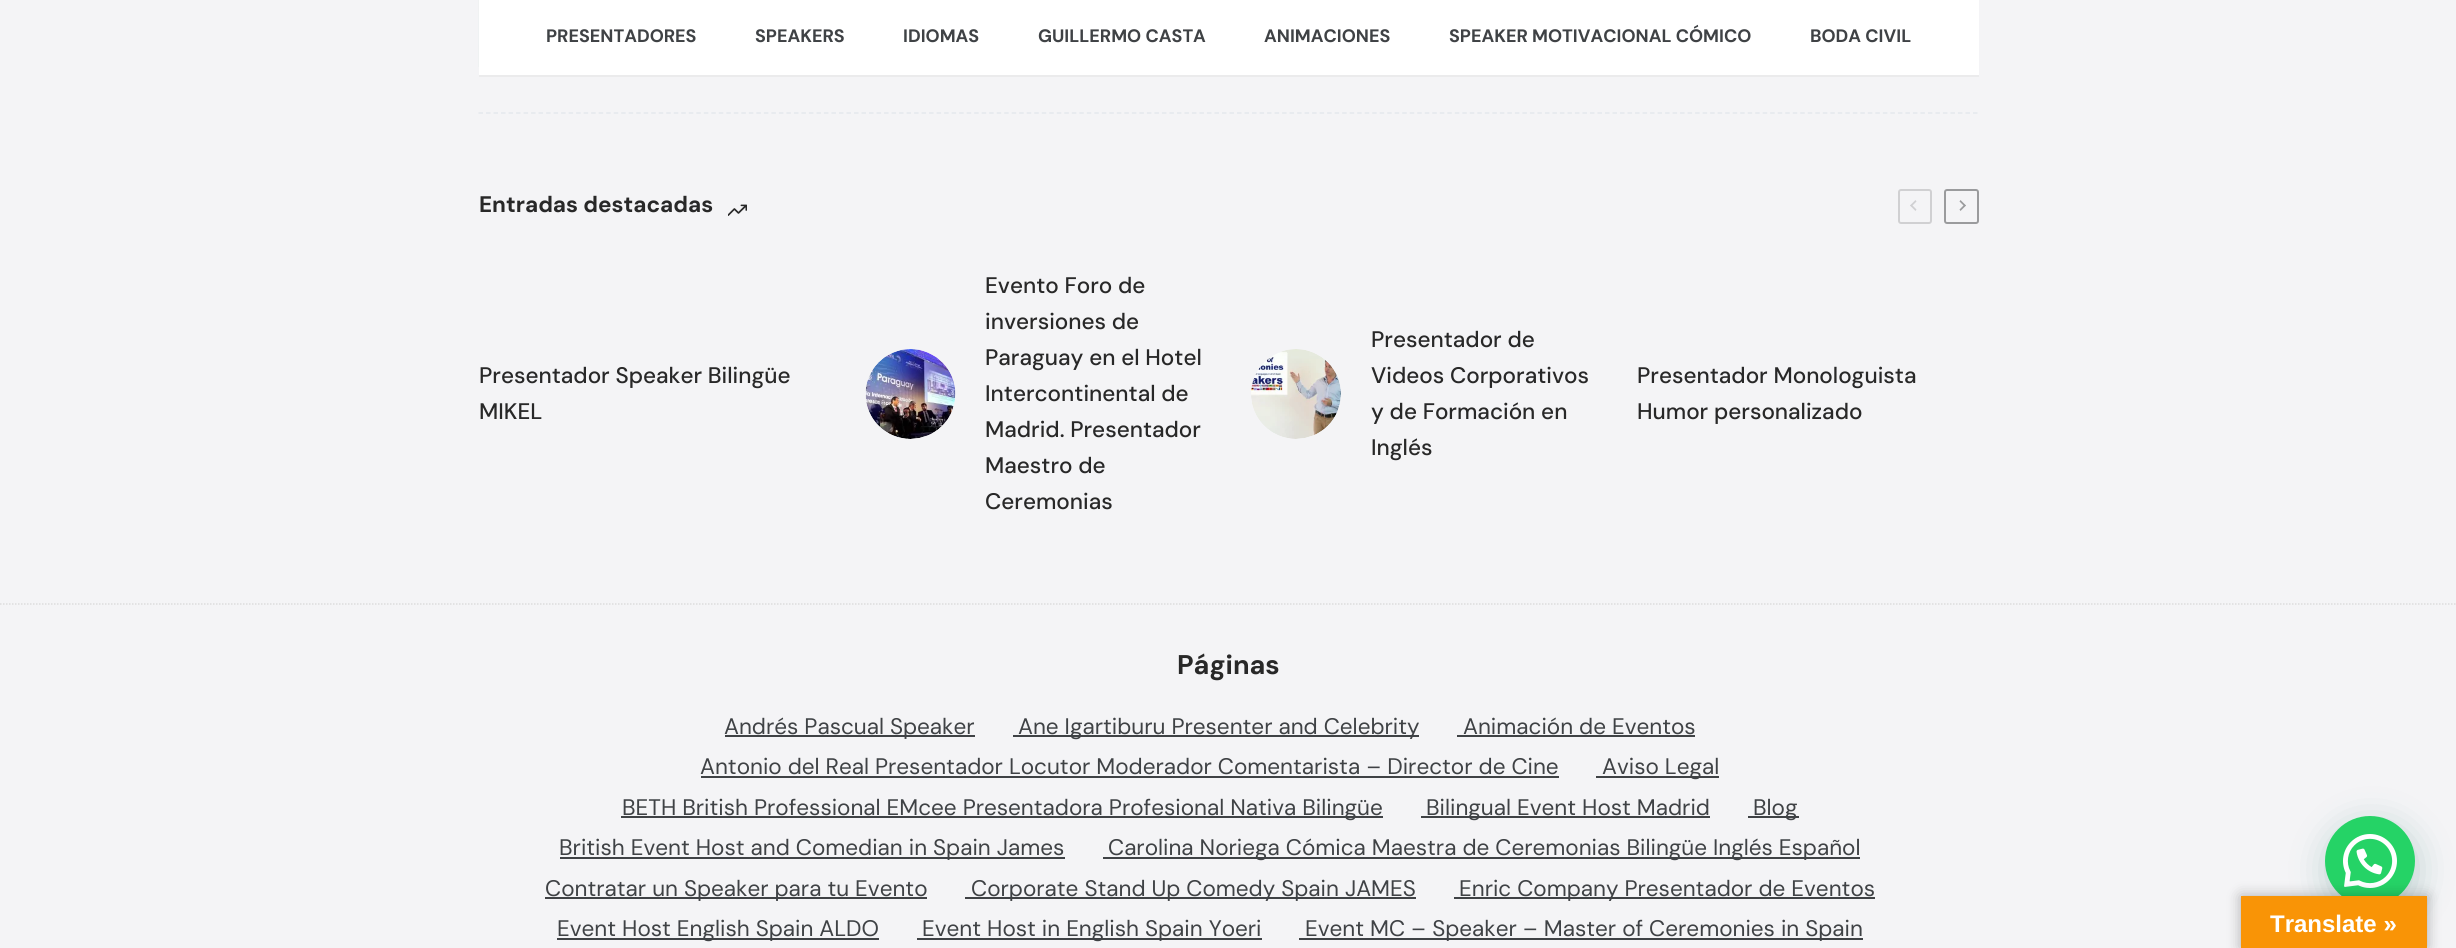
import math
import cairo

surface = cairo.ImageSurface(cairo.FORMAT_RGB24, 2456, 948)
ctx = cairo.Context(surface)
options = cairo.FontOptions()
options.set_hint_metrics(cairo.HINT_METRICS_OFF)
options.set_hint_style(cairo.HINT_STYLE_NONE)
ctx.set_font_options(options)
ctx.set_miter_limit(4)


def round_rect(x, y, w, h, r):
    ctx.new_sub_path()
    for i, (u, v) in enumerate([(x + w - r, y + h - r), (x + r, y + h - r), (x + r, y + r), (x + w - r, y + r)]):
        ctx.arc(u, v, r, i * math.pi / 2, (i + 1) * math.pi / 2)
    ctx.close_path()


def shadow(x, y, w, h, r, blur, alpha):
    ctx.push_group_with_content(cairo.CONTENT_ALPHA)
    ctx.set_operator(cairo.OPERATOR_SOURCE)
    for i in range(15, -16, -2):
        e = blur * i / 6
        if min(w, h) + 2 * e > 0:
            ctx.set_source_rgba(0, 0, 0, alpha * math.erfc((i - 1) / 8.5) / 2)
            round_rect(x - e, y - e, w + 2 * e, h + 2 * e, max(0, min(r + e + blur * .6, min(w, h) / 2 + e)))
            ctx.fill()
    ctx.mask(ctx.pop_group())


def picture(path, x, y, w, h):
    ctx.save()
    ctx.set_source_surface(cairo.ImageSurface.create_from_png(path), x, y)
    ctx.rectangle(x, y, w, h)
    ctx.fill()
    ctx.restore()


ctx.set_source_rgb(0.957, 0.957, 0.961)
ctx.paint()
ctx.set_source_rgb(1, 1, 1)
ctx.rectangle(479, 0, 1500, 75)
ctx.fill()
ctx.set_source_rgb(0.918, 0.918, 0.925)
ctx.rectangle(479, 75, 1500, 2)
ctx.fill()
ctx.select_font_face("DM Sans", cairo.FONT_SLANT_NORMAL, cairo.FONT_WEIGHT_BOLD)
ctx.set_font_size(18)
ctx.set_source_rgb(0.247, 0.259, 0.271)
ctx.move_to(546, 42)
ctx.show_text("PRESENTADORES")
ctx.move_to(755, 42)
ctx.show_text("SPEAKERS")
ctx.move_to(903, 42)
ctx.show_text("IDIOMAS")
ctx.move_to(1038, 42)
ctx.show_text("GUILLERMO CASTA")
ctx.move_to(1264, 42)
ctx.show_text("ANIMACIONES")
ctx.move_to(1449, 42)
ctx.show_text("SPEAKER MOTIVACIONAL CÓMICO")
ctx.move_to(1810, 42)
ctx.show_text("BODA CIVIL")
ctx.new_path()
ctx.move_to(478.5, 113)
ctx.line_to(1978.5, 113)
ctx.set_source_rgb(0.894, 0.91, 0.929)
ctx.set_line_width(1.5)
ctx.set_dash([4.5, 3.01])
ctx.stroke()
picture("img1.png", 478, 0, 1, 67)
ctx.set_font_size(22.5)
ctx.set_source_rgb(0.157, 0.157, 0.157)
ctx.move_to(479, 212)
ctx.show_text("Entradas destacadas")
picture("img2.png", 728, 204, 19, 12)
round_rect(1899, 190, 32, 33, 2)
ctx.set_source_rgb(0.816, 0.816, 0.824)
ctx.set_line_width(2)
ctx.set_dash([])
ctx.stroke()
ctx.new_path()
ctx.move_to(1910, 205.5)
ctx.line_to(1915.5, 200)
ctx.line_to(1916.5, 201.5)
ctx.line_to(1911.5, 206.5)
ctx.close_path()
ctx.fill()
ctx.new_path()
ctx.move_to(1910, 205.5)
ctx.line_to(1911.5, 204.5)
ctx.line_to(1916.5, 209.5)
ctx.line_to(1915.5, 211)
ctx.close_path()
ctx.fill()
round_rect(1945, 190, 33, 33, 2)
ctx.set_source_rgb(0.604, 0.608, 0.616)
ctx.stroke()
ctx.new_path()
ctx.move_to(1966, 205.5)
ctx.line_to(1960.5, 211)
ctx.line_to(1959.5, 209.5)
ctx.line_to(1964.5, 204.5)
ctx.close_path()
ctx.fill()
ctx.new_path()
ctx.move_to(1966, 205.5)
ctx.line_to(1964.5, 206.5)
ctx.line_to(1959.5, 201.5)
ctx.line_to(1960.5, 200)
ctx.close_path()
ctx.fill()
ctx.select_font_face("DM Sans Medium")
ctx.set_source_rgb(0.157, 0.157, 0.157)
ctx.move_to(479, 383)
ctx.show_text("Presentador Speaker Bilingüe")
ctx.move_to(479, 419)
ctx.show_text("MIKEL")
picture("img3.png", 865, 349, 91, 90)
ctx.move_to(985, 293)
ctx.show_text("Evento Foro de")
ctx.move_to(985, 329)
ctx.show_text("inversiones de")
ctx.move_to(985, 365)
ctx.show_text("Paraguay en el Hotel")
ctx.move_to(985, 401)
ctx.show_text("Intercontinental de")
ctx.move_to(985, 437)
ctx.show_text("Madrid. Presentador")
ctx.move_to(985, 473)
ctx.show_text("Maestro de")
ctx.move_to(985, 509)
ctx.show_text("Ceremonias")
picture("img4.png", 1251, 349, 90, 90)
ctx.move_to(1371, 347)
ctx.show_text("Presentador de")
ctx.move_to(1371, 383)
ctx.show_text("Videos Corporativos")
ctx.move_to(1371, 419)
ctx.show_text("y de Formación en")
ctx.move_to(1371, 455)
ctx.show_text("Inglés")
ctx.move_to(1637, 383)
ctx.show_text("Presentador Monologuista")
ctx.move_to(1637, 419)
ctx.show_text("Humor personalizado")
ctx.new_path()
ctx.move_to(0, 604)
ctx.line_to(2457, 604)
ctx.set_source_rgb(0.867, 0.867, 0.867)
ctx.set_line_width(1.5)
ctx.set_dash([1.5, 1.5])
ctx.stroke()
ctx.select_font_face("DM Sans", cairo.FONT_SLANT_NORMAL, cairo.FONT_WEIGHT_BOLD)
ctx.set_font_size(27)
ctx.set_source_rgb(0.157, 0.157, 0.157)
ctx.move_to(1177, 674)
ctx.show_text("Páginas")
ctx.set_source_rgb(0.247, 0.259, 0.271)
ctx.rectangle(725, 735, 250, 2)
ctx.fill()
ctx.select_font_face("DM Sans")
ctx.set_font_size(22.5)
ctx.move_to(724, 734)
ctx.show_text("Andrés Pascual Speaker")
ctx.rectangle(1013, 735, 406, 2)
ctx.fill()
ctx.move_to(1018, 734)
ctx.show_text("Ane Igartiburu Presenter and Celebrity")
ctx.move_to(1463, 734)
ctx.show_text("Animación de Eventos")
ctx.rectangle(1457, 735, 238, 2)
ctx.fill()
ctx.move_to(700, 774)
ctx.show_text("Antonio del Real Presentador Locutor Moderador Comentarista – Director de Cine")
ctx.rectangle(701, 776, 858, 2)
ctx.fill()
ctx.rectangle(1596, 776, 123, 2)
ctx.fill()
ctx.move_to(1602, 774)
ctx.show_text("Aviso Legal")
ctx.rectangle(621, 816, 762, 2)
ctx.fill()
ctx.move_to(622, 815)
ctx.show_text("BETH British Professional EMcee Presentadora Profesional Nativa Bilingüe")
ctx.rectangle(1421, 816, 289, 2)
ctx.fill()
ctx.move_to(1426, 815)
ctx.show_text("Bilingual Event Host Madrid")
ctx.rectangle(1748, 816, 51, 2)
ctx.fill()
ctx.move_to(1753, 815)
ctx.show_text("Blog")
ctx.rectangle(560, 857, 505, 2)
ctx.fill()
ctx.move_to(559, 855)
ctx.show_text("British Event Host and Comedian in Spain James")
ctx.rectangle(1103, 857, 757, 2)
ctx.fill()
ctx.move_to(1108, 855)
ctx.show_text("Carolina Noriega Cómica Maestra de Ceremonias Bilingüe Inglés Español")
ctx.rectangle(545, 897, 382, 2)
ctx.fill()
ctx.move_to(545, 896)
ctx.show_text("Contratar un Speaker para tu Evento")
ctx.rectangle(965, 897, 451, 2)
ctx.fill()
ctx.move_to(971, 896)
ctx.show_text("Corporate Stand Up Comedy Spain JAMES")
ctx.rectangle(1454, 897, 421, 2)
ctx.fill()
ctx.move_to(1459, 896)
ctx.show_text("Enric Company Presentador de Eventos")
ctx.rectangle(557, 938, 322, 2)
ctx.fill()
ctx.move_to(557, 936)
ctx.show_text("Event Host English Spain ALDO")
ctx.rectangle(917, 938, 345, 2)
ctx.fill()
ctx.move_to(922, 936)
ctx.show_text("Event Host in English Spain Yoeri")
ctx.rectangle(1299, 938, 564, 2)
ctx.fill()
ctx.move_to(1305, 936)
ctx.show_text("Event MC – Speaker – Master of Ceremonies in Spain")
ctx.set_source_rgb(0.027, 0.369, 0.329)
shadow(2327, 825, 90, 90, 45, 18, 0.24)
ctx.set_source_rgb(0.145, 0.827, 0.4)
ctx.arc(2370, 861, 45, 0, 2 * math.pi)
ctx.fill()
picture("img5.png", 2343, 834, 54, 54)
ctx.set_source_rgb(0, 0, 0)
shadow(2241, 896, 186, 52, 0, 7, 0.3)
ctx.set_source_rgb(0.973, 0.58, 0.024)
ctx.rectangle(2241, 896, 186, 52)
ctx.fill()
ctx.select_font_face("Liberation Sans", cairo.FONT_SLANT_NORMAL, cairo.FONT_WEIGHT_BOLD)
ctx.set_font_size(24)
ctx.set_source_rgb(1, 1, 1)
ctx.move_to(2270, 932)
ctx.show_text("Translate »")
surface.write_to_png("page.png")
